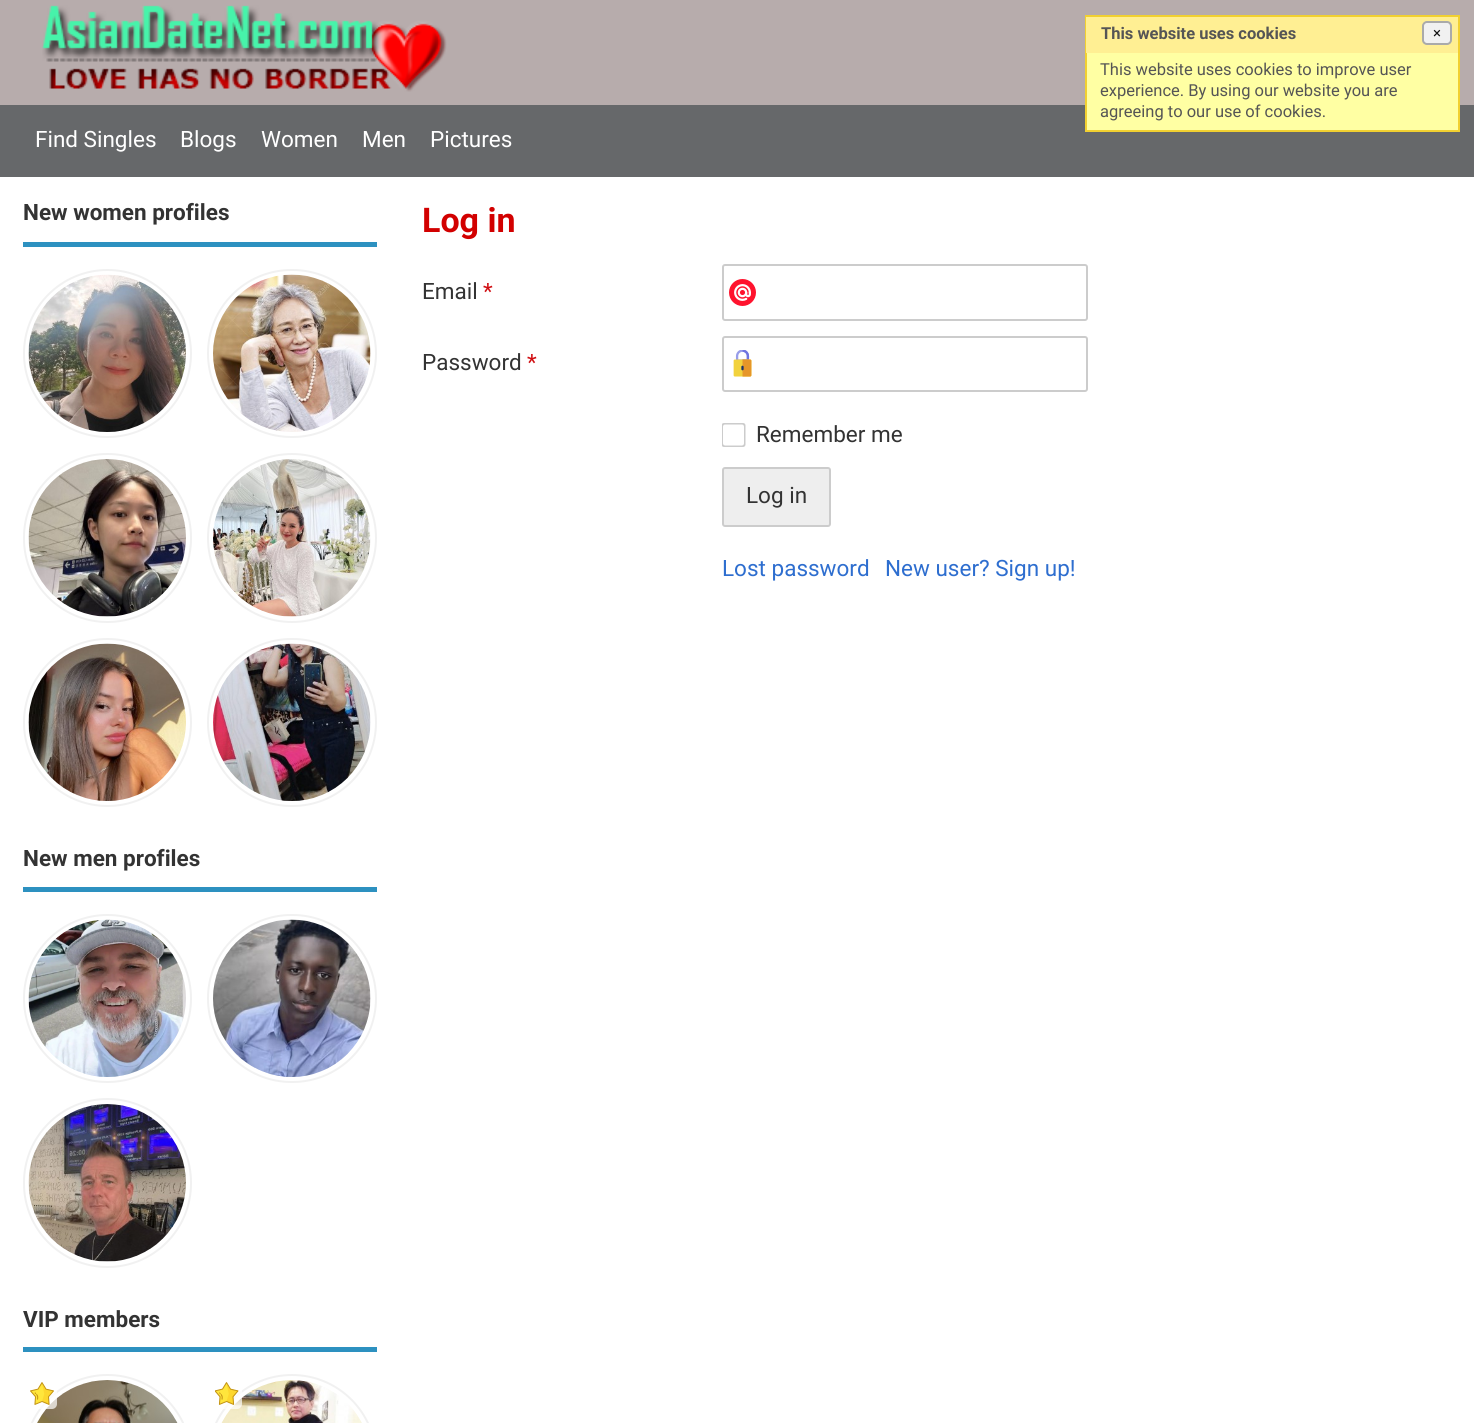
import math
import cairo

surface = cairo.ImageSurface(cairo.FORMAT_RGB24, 1474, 1423)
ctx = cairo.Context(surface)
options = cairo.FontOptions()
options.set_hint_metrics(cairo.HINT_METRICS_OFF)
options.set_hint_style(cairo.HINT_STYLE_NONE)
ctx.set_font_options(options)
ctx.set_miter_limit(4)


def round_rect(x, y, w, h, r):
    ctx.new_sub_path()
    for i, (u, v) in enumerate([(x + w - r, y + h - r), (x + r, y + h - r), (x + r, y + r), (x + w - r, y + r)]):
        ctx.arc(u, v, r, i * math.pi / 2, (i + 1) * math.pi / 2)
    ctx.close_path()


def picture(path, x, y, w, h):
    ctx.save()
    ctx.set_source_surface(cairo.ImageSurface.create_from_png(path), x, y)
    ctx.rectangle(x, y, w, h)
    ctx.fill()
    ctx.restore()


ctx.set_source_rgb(1, 1, 1)
ctx.paint()
ctx.set_source_rgb(0.718, 0.675, 0.675)
ctx.rectangle(0, 0, 1474, 105)
ctx.fill()
picture("img1.png", 42, 5, 405, 87)
ctx.set_source_rgb(0.4, 0.408, 0.416)
ctx.rectangle(0, 105, 1474, 72)
ctx.fill()
ctx.set_source_rgb(1, 1, 0.639)
ctx.rectangle(1087, 53, 371, 77)
ctx.fill()
ctx.rectangle(1086, 16, 373, 115)
ctx.set_source_rgb(0.945, 0.816, 0.192)
ctx.stroke()
ctx.set_source_rgb(1, 0.937, 0.576)
ctx.rectangle(1086, 17, 372, 36)
ctx.fill()
ctx.select_font_face("Roboto", cairo.FONT_SLANT_NORMAL, cairo.FONT_WEIGHT_BOLD)
ctx.set_font_size(16.5)
ctx.set_source_rgb(0.333, 0.333, 0.333)
ctx.move_to(1101, 39)
ctx.show_text("This website uses cookies")
ctx.set_source_rgb(0.945, 0.945, 0.945)
round_rect(1423, 22, 28, 22, 4)
ctx.fill_preserve()
ctx.set_source_rgb(0.667, 0.667, 0.667)
ctx.stroke()
ctx.select_font_face("Roboto")
ctx.set_font_size(15)
ctx.set_source_rgb(0.067, 0.067, 0.067)
ctx.move_to(1433, 38)
ctx.show_text("×")
ctx.set_font_size(16.5)
ctx.set_source_rgb(0.333, 0.333, 0.333)
ctx.move_to(1100, 75)
ctx.show_text("This website uses cookies to improve user")
ctx.move_to(1100, 96)
ctx.show_text("experience. By using our website you are")
ctx.move_to(1100, 117)
ctx.show_text("agreeing to our use of cookies.")
ctx.set_font_size(22.5)
ctx.set_source_rgb(1, 1, 1)
ctx.move_to(35, 147)
ctx.show_text("Find Singles")
ctx.move_to(180, 147)
ctx.show_text("Blogs")
ctx.move_to(261, 147)
ctx.show_text("Women")
ctx.move_to(362, 147)
ctx.show_text("Men")
ctx.move_to(430, 147)
ctx.show_text("Pictures")
ctx.set_source_rgb(0.176, 0.569, 0.753)
ctx.rectangle(23, 242, 354, 5)
ctx.fill()
ctx.select_font_face("Roboto", cairo.FONT_SLANT_NORMAL, cairo.FONT_WEIGHT_BOLD)
ctx.set_source_rgb(0.2, 0.2, 0.2)
ctx.move_to(23, 220)
ctx.show_text("New women profiles")
ctx.new_path()
ctx.arc(107.5, 353.5, 83.5, 0, 2 * math.pi)
ctx.set_source_rgb(0.945, 0.945, 0.945)
ctx.stroke()
picture("img2.png", 28, 274, 158, 158)
round_rect(208, 270, 168, 167, 83.5)
ctx.stroke()
picture("img3.png", 213, 274, 158, 158)
round_rect(24, 454, 167, 168, 83.5)
ctx.stroke()
picture("img4.png", 28, 459, 158, 158)
ctx.arc(292, 538, 84, 0, 2 * math.pi)
ctx.stroke()
picture("img5.png", 213, 459, 158, 158)
ctx.arc(107.5, 722.5, 83.5, 0, 2 * math.pi)
ctx.stroke()
picture("img6.png", 28, 643, 158, 158)
round_rect(208, 639, 168, 167, 83.5)
ctx.stroke()
picture("img7.png", 213, 643, 158, 158)
ctx.set_source_rgb(0.176, 0.569, 0.753)
ctx.rectangle(23, 887, 354, 5)
ctx.fill()
ctx.set_source_rgb(0.2, 0.2, 0.2)
ctx.move_to(23, 866)
ctx.show_text("New men profiles")
ctx.new_path()
ctx.arc(107.5, 998.5, 83.5, 0, 2 * math.pi)
ctx.set_source_rgb(0.945, 0.945, 0.945)
ctx.stroke()
picture("img8.png", 28, 919, 158, 158)
round_rect(208, 915, 168, 167, 83.5)
ctx.stroke()
picture("img9.png", 213, 919, 158, 158)
round_rect(24, 1099, 167, 168, 83.5)
ctx.stroke()
picture("img10.png", 28, 1104, 158, 158)
ctx.set_source_rgb(0.176, 0.569, 0.753)
ctx.rectangle(23, 1347, 354, 5)
ctx.fill()
ctx.set_source_rgb(0.2, 0.2, 0.2)
ctx.move_to(23, 1327)
ctx.show_text("VIP members")
round_rect(24, 1375, 167, 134, 83.5)
ctx.set_source_rgb(0.945, 0.945, 0.945)
ctx.stroke()
picture("img12.png", 37, 1380, 141, 43)
ctx.set_source_rgba(1, 1, 1, 0.7)
round_rect(27, 1379, 30, 30, 5)
ctx.fill()
picture("img11.png", 30, 1382, 24, 23)
round_rect(208, 1375, 168, 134, 84)
ctx.set_source_rgb(0.945, 0.945, 0.945)
ctx.stroke()
picture("img14.png", 221, 1380, 141, 43)
ctx.set_source_rgba(1, 1, 1, 0.7)
round_rect(212, 1379, 30, 30, 5)
ctx.fill()
picture("img13.png", 215, 1382, 24, 23)
ctx.set_font_size(34)
ctx.set_source_rgb(0.824, 0, 0)
ctx.move_to(422, 232)
ctx.show_text("Log in")
ctx.select_font_face("Roboto")
ctx.set_font_size(22.5)
ctx.set_source_rgb(0.2, 0.2, 0.2)
ctx.move_to(422, 299)
ctx.show_text("Email")
ctx.set_source_rgb(0.816, 0.055, 0.071)
ctx.move_to(483, 299)
ctx.show_text("*")
picture("img15.png", 729, 279, 27, 27)
round_rect(723, 265, 364, 55, 2)
ctx.set_source_rgb(0.8, 0.8, 0.8)
ctx.stroke()
ctx.set_source_rgb(0.2, 0.2, 0.2)
ctx.move_to(422, 370)
ctx.show_text("Password")
ctx.set_source_rgb(0.816, 0.055, 0.071)
ctx.move_to(527, 370)
ctx.show_text("*")
picture("img16.png", 733, 350, 19, 27)
round_rect(723, 337, 364, 54, 2)
ctx.set_source_rgb(0.8, 0.8, 0.8)
ctx.stroke()
picture("img17.png", 722, 423, 24, 24)
ctx.set_source_rgb(0.2, 0.2, 0.2)
ctx.move_to(756, 442)
ctx.show_text("Remember me")
ctx.set_source_rgb(0.933, 0.933, 0.933)
round_rect(723, 468, 107, 58, 2)
ctx.fill_preserve()
ctx.set_source_rgb(0.8, 0.8, 0.8)
ctx.stroke()
ctx.set_source_rgb(0.2, 0.2, 0.2)
ctx.move_to(746, 503)
ctx.show_text("Log in")
ctx.set_source_rgb(0.18, 0.431, 0.812)
ctx.move_to(722, 576)
ctx.show_text("Lost password")
ctx.move_to(885, 576)
ctx.show_text("New user? Sign up!")
surface.write_to_png("page.png")
